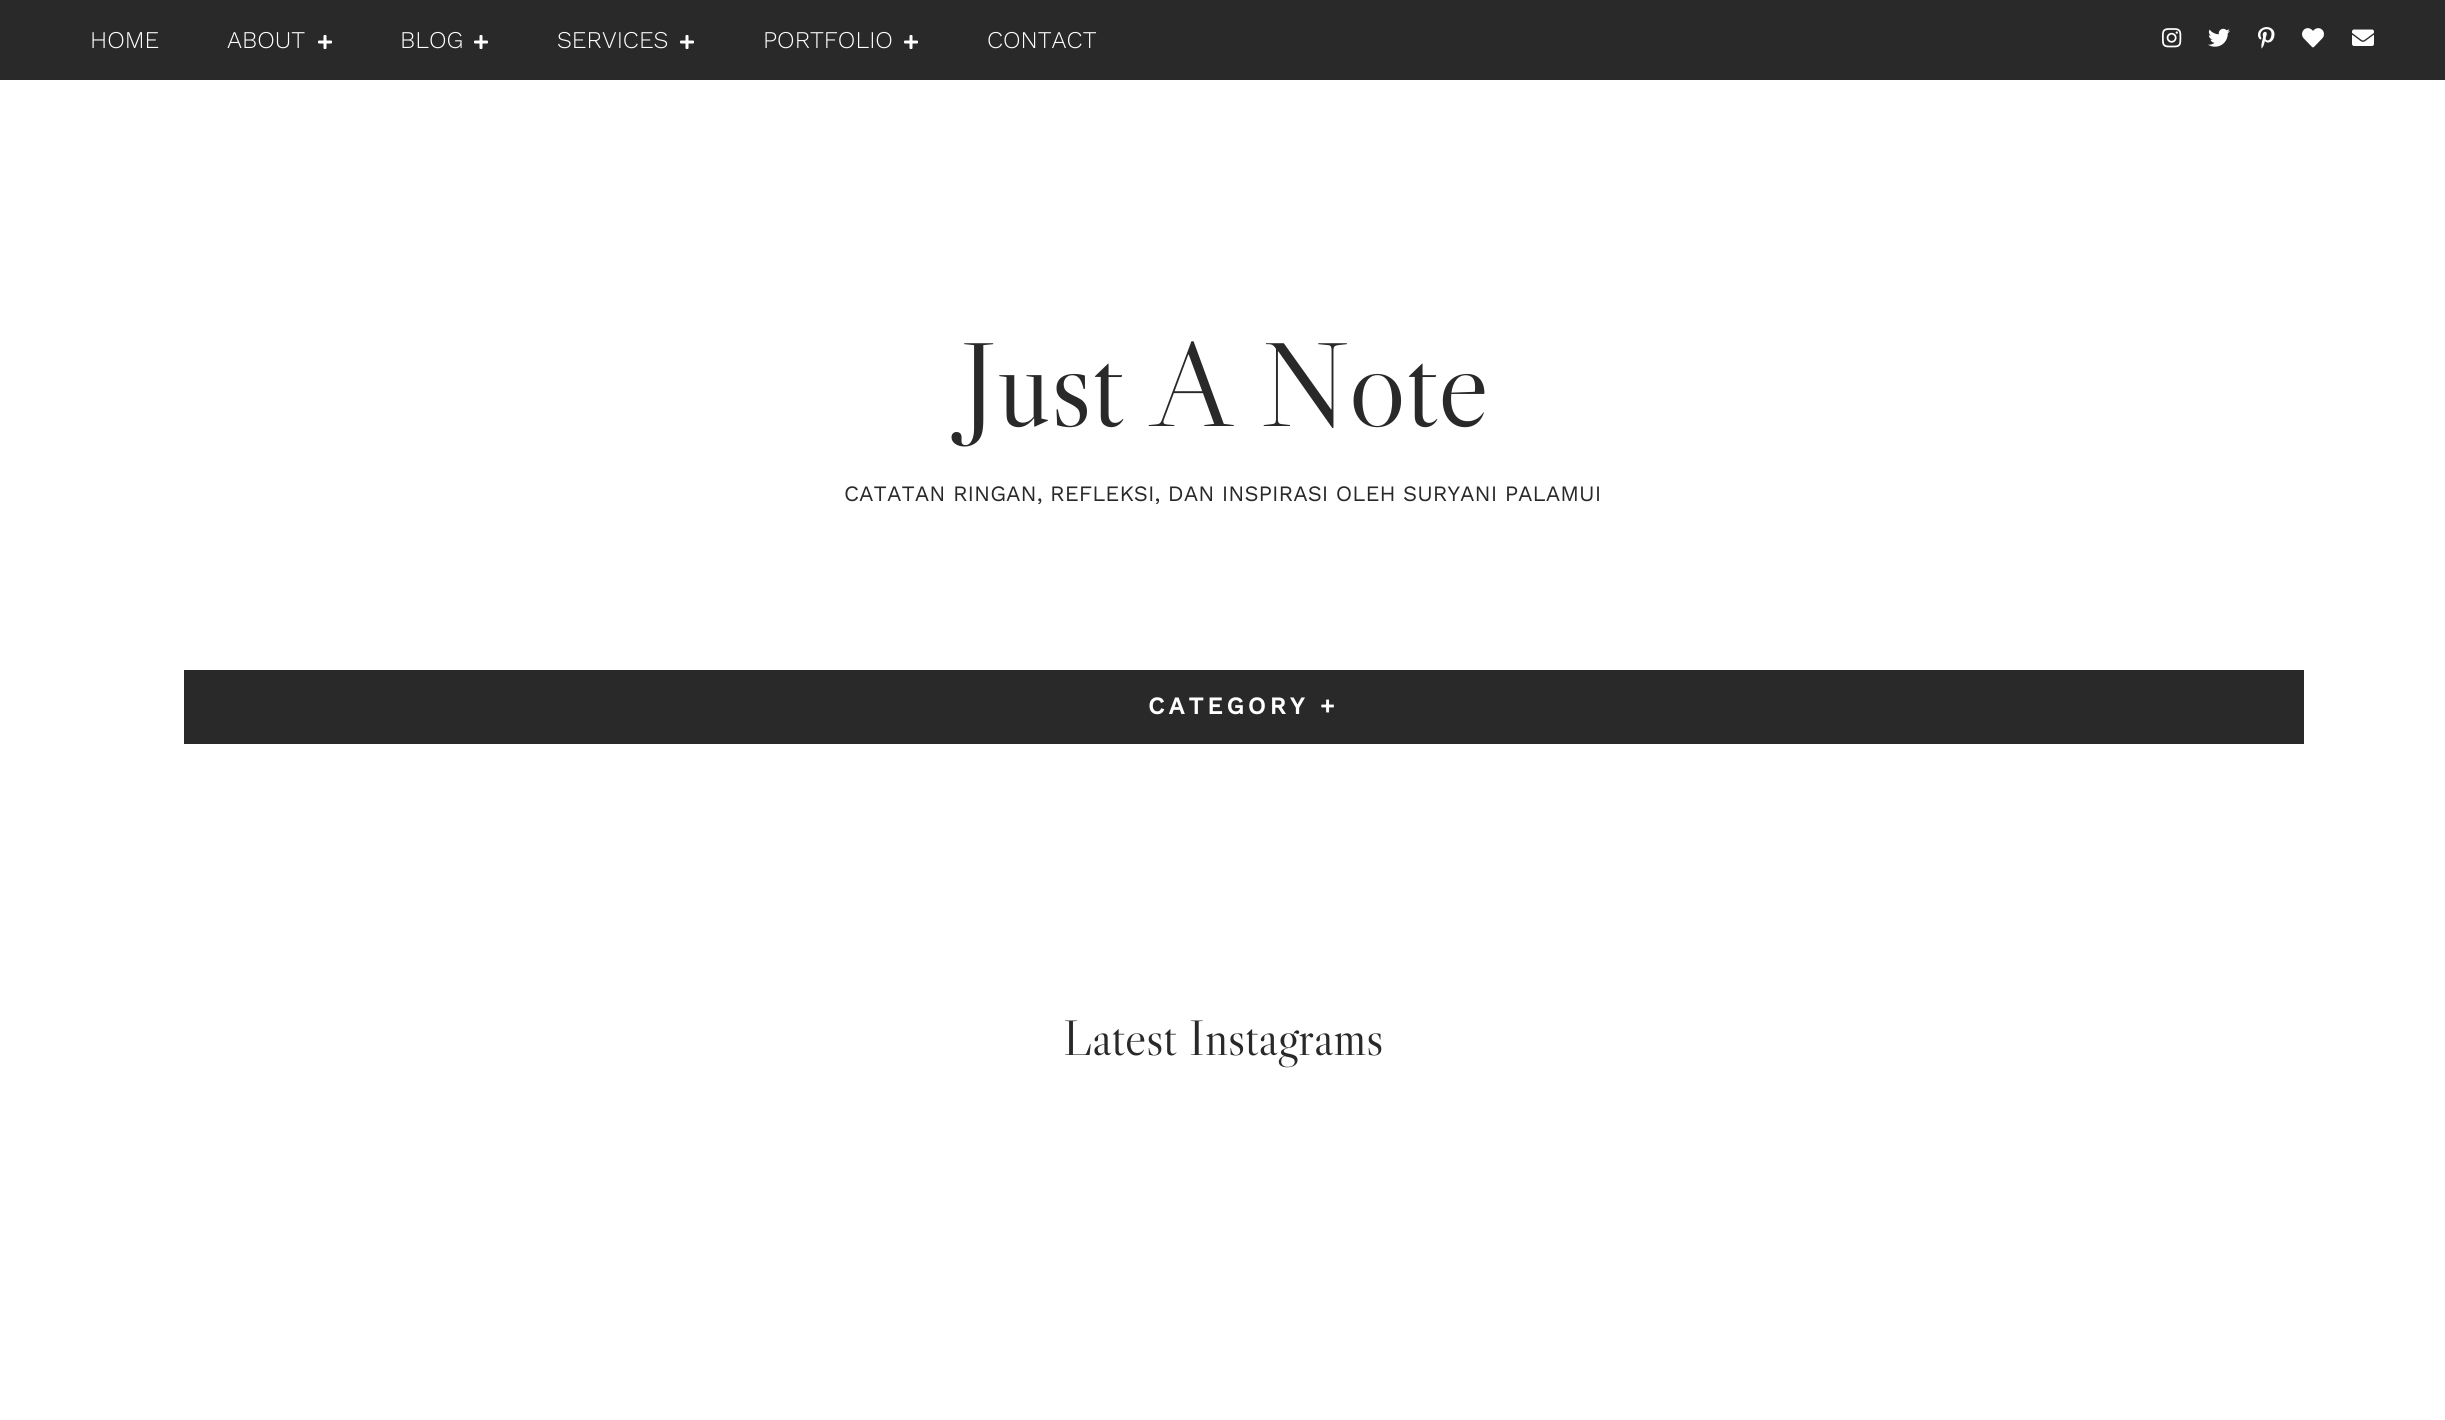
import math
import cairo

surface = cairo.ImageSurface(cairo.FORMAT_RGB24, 2445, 1420)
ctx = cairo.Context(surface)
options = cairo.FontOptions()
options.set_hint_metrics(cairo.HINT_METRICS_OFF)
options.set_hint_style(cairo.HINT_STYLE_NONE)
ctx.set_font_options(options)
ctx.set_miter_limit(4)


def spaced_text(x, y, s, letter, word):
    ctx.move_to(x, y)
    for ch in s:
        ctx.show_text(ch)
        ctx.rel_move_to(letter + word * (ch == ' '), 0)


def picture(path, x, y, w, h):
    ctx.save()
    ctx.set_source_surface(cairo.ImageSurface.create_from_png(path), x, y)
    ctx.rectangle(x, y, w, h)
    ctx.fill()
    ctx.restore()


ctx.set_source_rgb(1, 1, 1)
ctx.paint()
ctx.set_source_rgb(0.161, 0.161, 0.161)
ctx.rectangle(0, 0, 2445, 80)
ctx.fill()
ctx.select_font_face("Work Sans Light")
ctx.set_font_size(24)
ctx.set_source_rgb(1, 1, 1)
ctx.move_to(90, 48)
ctx.show_text("HOME")
ctx.move_to(227, 48)
ctx.show_text("ABOUT")
picture("img1.png", 318, 35, 14, 14)
ctx.move_to(400, 48)
ctx.show_text("BLOG")
picture("img1.png", 474, 35, 14, 14)
ctx.move_to(557, 48)
ctx.show_text("SERVICES")
picture("img1.png", 680, 35, 14, 14)
ctx.move_to(763, 48)
ctx.show_text("PORTFOLIO")
picture("img1.png", 904, 35, 14, 14)
ctx.move_to(987, 48)
ctx.show_text("CONTACT")
picture("img2.png", 2162, 28, 20, 20)
picture("img3.png", 2208, 28, 22, 19)
picture("img4.png", 2258, 27, 17, 22)
picture("img5.png", 2302, 28, 22, 20)
picture("img6.png", 2352, 29, 22, 17)
ctx.select_font_face("Libre Caslon Display")
ctx.set_font_size(120)
ctx.set_source_rgb(0.161, 0.161, 0.161)
ctx.move_to(958, 426)
ctx.show_text("Just A Note")
ctx.select_font_face("Work Sans")
ctx.set_font_size(22)
ctx.move_to(844, 501)
ctx.show_text("CATATAN RINGAN, REFLEKSI, DAN INSPIRASI OLEH SURYANI PALAMUI")
ctx.rectangle(184, 670, 2120, 74)
ctx.fill()
ctx.select_font_face("Work Sans", cairo.FONT_SLANT_NORMAL, cairo.FONT_WEIGHT_BOLD)
ctx.set_font_size(24)
ctx.set_source_rgb(1, 1, 1)
spaced_text(1148, 714, "CATEGORY +", 4, 0)
ctx.select_font_face("Libre Caslon Display")
ctx.set_font_size(50)
ctx.set_source_rgb(0.161, 0.161, 0.161)
ctx.move_to(1063, 1055)
ctx.show_text("Latest Instagrams")
surface.write_to_png("page.png")
